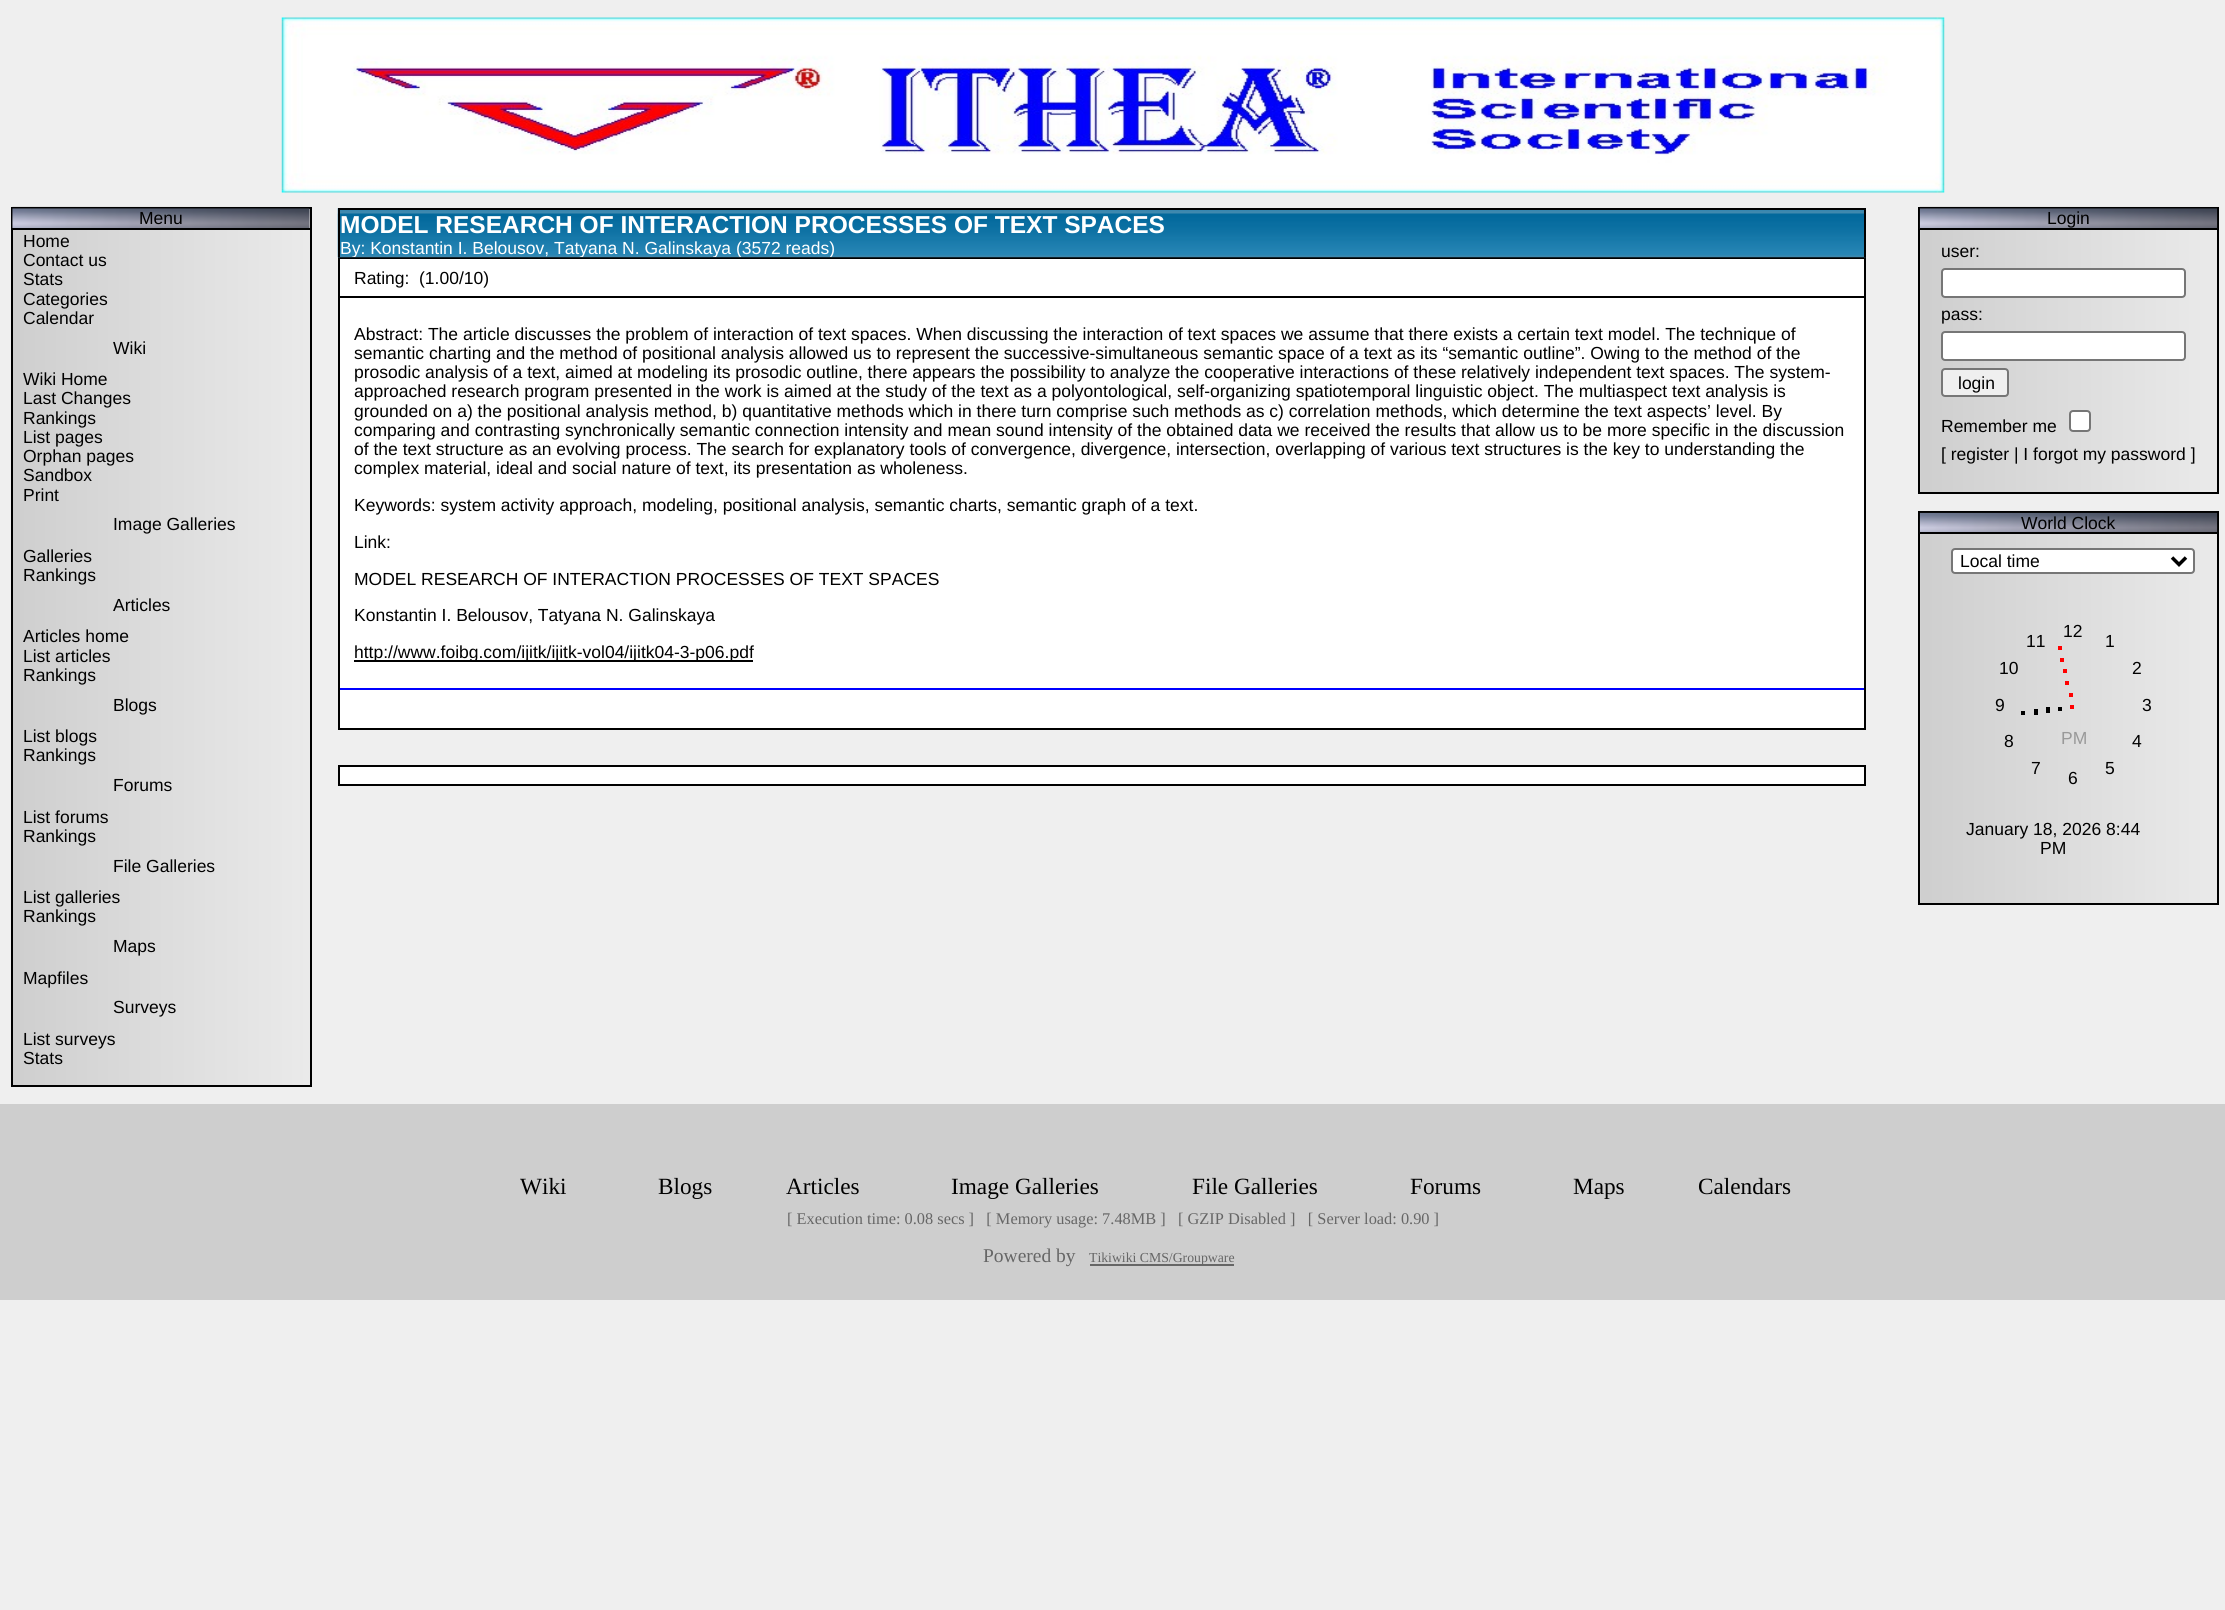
import math
import cairo

surface = cairo.ImageSurface(cairo.FORMAT_RGB24, 2225, 1610)
ctx = cairo.Context(surface)
options = cairo.FontOptions()
options.set_hint_metrics(cairo.HINT_METRICS_OFF)
options.set_hint_style(cairo.HINT_STYLE_NONE)
ctx.set_font_options(options)
ctx.set_miter_limit(4)


def round_rect(x, y, w, h, r):
    ctx.new_sub_path()
    for i, (u, v) in enumerate([(x + w - r, y + h - r), (x + r, y + h - r), (x + r, y + r), (x + w - r, y + r)]):
        ctx.arc(u, v, r, i * math.pi / 2, (i + 1) * math.pi / 2)
    ctx.close_path()


def picture(path, x, y, w, h):
    ctx.save()
    ctx.set_source_surface(cairo.ImageSurface.create_from_png(path), x, y)
    ctx.rectangle(x, y, w, h)
    ctx.fill()
    ctx.restore()


ctx.set_source_rgb(0.937, 0.937, 0.937)
ctx.paint()
picture("img1.png", 281, 17, 1664, 176)
picture("img2.png", 12, 206, 299, 879)
ctx.rectangle(12, 208, 299, 878)
ctx.set_source_rgb(0, 0, 0)
ctx.stroke()
picture("img3.png", 12, 208, 298, 20)
ctx.rectangle(12, 228, 298, 2)
ctx.fill()
ctx.select_font_face("Liberation Sans")
ctx.set_font_size(17.5)
ctx.move_to(139, 224)
ctx.show_text("Menu")
ctx.move_to(23, 247)
ctx.show_text("Home")
ctx.move_to(23, 266)
ctx.show_text("Contact us")
ctx.move_to(23, 285)
ctx.show_text("Stats")
ctx.move_to(23, 305)
ctx.show_text("Categories")
ctx.move_to(23, 324)
ctx.show_text("Calendar")
ctx.move_to(113, 354)
ctx.show_text("Wiki")
ctx.move_to(23, 385)
ctx.show_text("Wiki Home")
ctx.move_to(23, 404)
ctx.show_text("Last Changes")
ctx.move_to(23, 424)
ctx.show_text("Rankings")
ctx.move_to(23, 443)
ctx.show_text("List pages")
ctx.move_to(23, 462)
ctx.show_text("Orphan pages")
ctx.move_to(23, 481)
ctx.show_text("Sandbox")
ctx.move_to(23, 501)
ctx.show_text("Print")
ctx.move_to(113, 530)
ctx.show_text("Image Galleries")
ctx.move_to(23, 562)
ctx.show_text("Galleries")
ctx.move_to(23, 581)
ctx.show_text("Rankings")
ctx.move_to(113, 611)
ctx.show_text("Articles")
ctx.move_to(23, 642)
ctx.show_text("Articles home")
ctx.move_to(23, 662)
ctx.show_text("List articles")
ctx.move_to(23, 681)
ctx.show_text("Rankings")
ctx.move_to(113, 711)
ctx.show_text("Blogs")
ctx.move_to(23, 742)
ctx.show_text("List blogs")
ctx.move_to(23, 761)
ctx.show_text("Rankings")
ctx.move_to(113, 791)
ctx.show_text("Forums")
ctx.move_to(23, 823)
ctx.show_text("List forums")
ctx.move_to(23, 842)
ctx.show_text("Rankings")
ctx.move_to(113, 872)
ctx.show_text("File Galleries")
ctx.move_to(23, 903)
ctx.show_text("List galleries")
ctx.move_to(23, 922)
ctx.show_text("Rankings")
ctx.move_to(113, 952)
ctx.show_text("Maps")
ctx.move_to(23, 984)
ctx.show_text("Mapfiles")
ctx.move_to(113, 1013)
ctx.show_text("Surveys")
ctx.move_to(23, 1045)
ctx.show_text("List surveys")
ctx.move_to(23, 1064)
ctx.show_text("Stats")
ctx.rectangle(338, 257, 1528, 2)
ctx.fill()
ctx.rectangle(1864, 257, 2, 39)
ctx.fill()
ctx.rectangle(338, 257, 2, 39)
ctx.fill()
picture("img4.png", 337, 208, 1529, 50)
ctx.rectangle(338, 208, 1528, 2)
ctx.fill()
ctx.rectangle(1864, 208, 2, 49)
ctx.fill()
ctx.rectangle(338, 208, 2, 49)
ctx.fill()
ctx.select_font_face("Liberation Sans", cairo.FONT_SLANT_NORMAL, cairo.FONT_WEIGHT_BOLD)
ctx.set_font_size(24.5)
ctx.set_source_rgb(1, 1, 1)
ctx.move_to(340, 233)
ctx.show_text("MODEL RESEARCH OF INTERACTION PROCESSES OF TEXT SPACES")
ctx.save()
ctx.rectangle(340, 210, 1524, 47)
ctx.clip()
ctx.select_font_face("Liberation Sans")
ctx.set_font_size(17.5)
ctx.move_to(340, 254)
ctx.show_text("By: Konstantin I. Belousov, Tatyana N. Galinskaya (3572 reads)")
ctx.restore()
ctx.rectangle(340, 259, 1524, 37)
ctx.fill()
ctx.select_font_face("Liberation Sans")
ctx.set_font_size(17.5)
ctx.set_source_rgb(0, 0, 0)
ctx.move_to(354, 284)
ctx.show_text("Rating:")
ctx.move_to(419, 284)
ctx.show_text("(1.00/10)")
ctx.set_source_rgb(1, 1, 1)
ctx.rectangle(340, 298, 1524, 390)
ctx.fill()
ctx.set_source_rgb(0, 0, 0)
ctx.rectangle(338, 296, 1528, 2)
ctx.fill()
ctx.rectangle(1864, 296, 2, 392)
ctx.fill()
ctx.rectangle(338, 296, 2, 392)
ctx.fill()
ctx.move_to(354, 340)
ctx.show_text("Abstract: The article discusses the problem of interaction of text spaces. When discussing the interaction of text spaces we assume that there exists a certain text model. The technique of")
ctx.move_to(354, 359)
ctx.show_text("semantic charting and the method of positional analysis allowed us to represent the successive-simultaneous semantic space of a text as its “semantic outline”. Owing to the method of the")
ctx.move_to(354, 378)
ctx.show_text("prosodic analysis of a text, aimed at modeling its prosodic outline, there appears the possibility to analyze the cooperative interactions of these relatively independent text spaces. The system-")
ctx.move_to(354, 397)
ctx.show_text("approached research program presented in the work is aimed at the study of the text as a polyontological, self-organizing spatiotemporal linguistic object. The multiaspect text analysis is")
ctx.move_to(354, 417)
ctx.show_text("grounded on a) the positional analysis method, b) quantitative methods which in there turn comprise such methods as c) correlation methods, which determine the text aspects’ level. By")
ctx.move_to(354, 436)
ctx.show_text("comparing and contrasting synchronically semantic connection intensity and mean sound intensity of the obtained data we received the results that allow us to be more specific in the discussion")
ctx.move_to(354, 455)
ctx.show_text("of the text structure as an evolving process. The search for explanatory tools of convergence, divergence, intersection, overlapping of various text structures is the key to understanding the")
ctx.move_to(354, 474)
ctx.show_text("complex material, ideal and social nature of text, its presentation as wholeness.")
ctx.move_to(354, 511)
ctx.show_text("Keywords: system activity approach, modeling, positional analysis, semantic charts, semantic graph of a text.")
ctx.move_to(354, 548)
ctx.show_text("Link:")
ctx.move_to(354, 585)
ctx.show_text("MODEL RESEARCH OF INTERACTION PROCESSES OF TEXT SPACES")
ctx.move_to(354, 621)
ctx.show_text("Konstantin I. Belousov, Tatyana N. Galinskaya")
ctx.rectangle(354, 660, 399, 2)
ctx.fill()
ctx.move_to(354, 658)
ctx.show_text("http://www.foibg.com/ijitk/ijitk-vol04/ijitk04-3-p06.pdf")
ctx.set_source_rgb(1, 1, 1)
ctx.rectangle(340, 690, 1524, 38)
ctx.fill()
ctx.set_source_rgb(0, 0, 1)
ctx.rectangle(338, 688, 1528, 2)
ctx.fill()
ctx.set_source_rgb(0, 0, 0)
ctx.rectangle(1864, 688, 2, 42)
ctx.fill()
ctx.rectangle(338, 728, 1528, 2)
ctx.fill()
ctx.rectangle(338, 688, 2, 42)
ctx.fill()
ctx.set_source_rgb(1, 1, 1)
ctx.rectangle(339, 766, 1526, 19)
ctx.fill_preserve()
ctx.set_source_rgb(0, 0, 0)
ctx.stroke()
picture("img5.png", 1918, 206, 301, 286)
ctx.rectangle(1919, 208, 299, 285)
ctx.stroke()
picture("img6.png", 1919, 208, 299, 21)
ctx.rectangle(1920, 228, 297, 2)
ctx.fill()
ctx.move_to(2047, 224)
ctx.show_text("Login")
ctx.move_to(1941, 257)
ctx.show_text("user:")
ctx.set_source_rgb(1, 1, 1)
round_rect(1942, 269, 243, 28, 3)
ctx.fill_preserve()
ctx.set_source_rgb(0.463, 0.463, 0.463)
ctx.stroke()
ctx.set_source_rgb(0, 0, 0)
ctx.move_to(1941, 320)
ctx.show_text("pass:")
ctx.set_source_rgb(1, 1, 1)
round_rect(1942, 332, 243, 28, 3)
ctx.fill_preserve()
ctx.set_source_rgb(0.463, 0.463, 0.463)
ctx.stroke()
ctx.set_source_rgb(0.937, 0.937, 0.937)
round_rect(1942, 369, 66, 27, 3)
ctx.fill_preserve()
ctx.set_source_rgb(0.463, 0.463, 0.463)
ctx.stroke()
ctx.set_source_rgb(0, 0, 0)
ctx.move_to(1958, 389)
ctx.show_text("login")
ctx.move_to(1941, 432)
ctx.show_text("Remember me")
ctx.set_source_rgb(1, 1, 1)
round_rect(2070, 411, 20, 20, 3)
ctx.fill_preserve()
ctx.set_source_rgb(0.463, 0.463, 0.463)
ctx.stroke()
ctx.set_source_rgb(0, 0, 0)
ctx.move_to(1941, 460)
ctx.show_text("[ register | I forgot my password ]")
picture("img7.png", 1920, 534, 297, 369)
ctx.rectangle(1919, 512, 299, 392)
ctx.stroke()
picture("img8.png", 1919, 512, 299, 22)
ctx.rectangle(1920, 532, 297, 2)
ctx.fill()
ctx.move_to(2021, 529)
ctx.show_text("World Clock")
ctx.set_source_rgb(1, 1, 1)
round_rect(1952, 549, 242, 24, 3)
ctx.fill_preserve()
ctx.set_source_rgb(0.463, 0.463, 0.463)
ctx.stroke()
ctx.new_path()
ctx.move_to(2172, 557.5)
ctx.line_to(2179, 564.5)
ctx.line_to(2186, 557.5)
ctx.set_source_rgb(0, 0, 0)
ctx.set_line_width(3.5)
ctx.stroke()
ctx.move_to(1960, 567)
ctx.show_text("Local time")
ctx.move_to(2063, 637)
ctx.show_text("12")
ctx.move_to(2026, 647)
ctx.show_text("11")
ctx.move_to(2105, 647)
ctx.show_text("1")
ctx.set_source_rgb(1, 0, 0)
ctx.rectangle(2058, 646, 4, 4)
ctx.fill()
ctx.rectangle(2060, 658, 4, 4)
ctx.fill()
ctx.set_source_rgb(0, 0, 0)
ctx.move_to(1999, 674)
ctx.show_text("10")
ctx.set_source_rgb(1, 0, 0)
ctx.rectangle(2063, 669, 4, 4)
ctx.fill()
ctx.set_source_rgb(0, 0, 0)
ctx.move_to(2132, 674)
ctx.show_text("2")
ctx.set_source_rgb(1, 0, 0)
ctx.rectangle(2065, 681, 4, 4)
ctx.fill()
ctx.rectangle(2069, 693, 4, 4)
ctx.fill()
ctx.set_source_rgb(0, 0, 0)
ctx.move_to(1995, 711)
ctx.show_text("9")
ctx.rectangle(2021, 711, 4, 4)
ctx.fill()
ctx.rectangle(2034, 709, 4, 6)
ctx.fill()
ctx.rectangle(2046, 707, 4, 6)
ctx.fill()
ctx.rectangle(2058, 707, 4, 4)
ctx.fill()
ctx.set_source_rgb(1, 0, 0)
ctx.rectangle(2070, 705, 4, 4)
ctx.fill()
ctx.set_source_rgb(0, 0, 0)
ctx.move_to(2142, 711)
ctx.show_text("3")
ctx.move_to(2004, 747)
ctx.show_text("8")
ctx.set_source_rgb(0.6, 0.6, 0.6)
ctx.move_to(2061, 744)
ctx.show_text("PM")
ctx.set_source_rgb(0, 0, 0)
ctx.move_to(2132, 747)
ctx.show_text("4")
ctx.move_to(2031, 774)
ctx.show_text("7")
ctx.move_to(2105, 774)
ctx.show_text("5")
ctx.move_to(2068, 784)
ctx.show_text("6")
ctx.move_to(1966, 835)
ctx.show_text("January 18, 2026 8:44")
ctx.move_to(2040, 854)
ctx.show_text("PM")
ctx.set_source_rgb(0.808, 0.808, 0.808)
ctx.rectangle(0, 1104, 2225, 196)
ctx.fill()
ctx.select_font_face("Liberation Serif")
ctx.set_font_size(23.25)
ctx.set_source_rgb(0, 0, 0)
ctx.move_to(520, 1194)
ctx.show_text("Wiki")
ctx.move_to(658, 1194)
ctx.show_text("Blogs")
ctx.move_to(786, 1194)
ctx.show_text("Articles")
ctx.move_to(951, 1194)
ctx.show_text("Image Galleries")
ctx.move_to(1192, 1194)
ctx.show_text("File Galleries")
ctx.move_to(1410, 1194)
ctx.show_text("Forums")
ctx.move_to(1573, 1194)
ctx.show_text("Maps")
ctx.move_to(1698, 1194)
ctx.show_text("Calendars")
ctx.set_font_size(16.35)
ctx.set_source_rgb(0.4, 0.4, 0.4)
ctx.move_to(787, 1224)
ctx.show_text("[ Execution time: 0.08 secs ]   [ Memory usage: 7.48MB ]   [ GZIP Disabled ]   [ Server load: 0.90 ]")
ctx.set_font_size(19.5)
ctx.move_to(983, 1262)
ctx.show_text("Powered by")
ctx.rectangle(1090, 1264, 144, 2)
ctx.fill()
ctx.set_font_size(13.75)
ctx.move_to(1089, 1262)
ctx.show_text("Tikiwiki CMS/Groupware")
surface.write_to_png("page.png")
